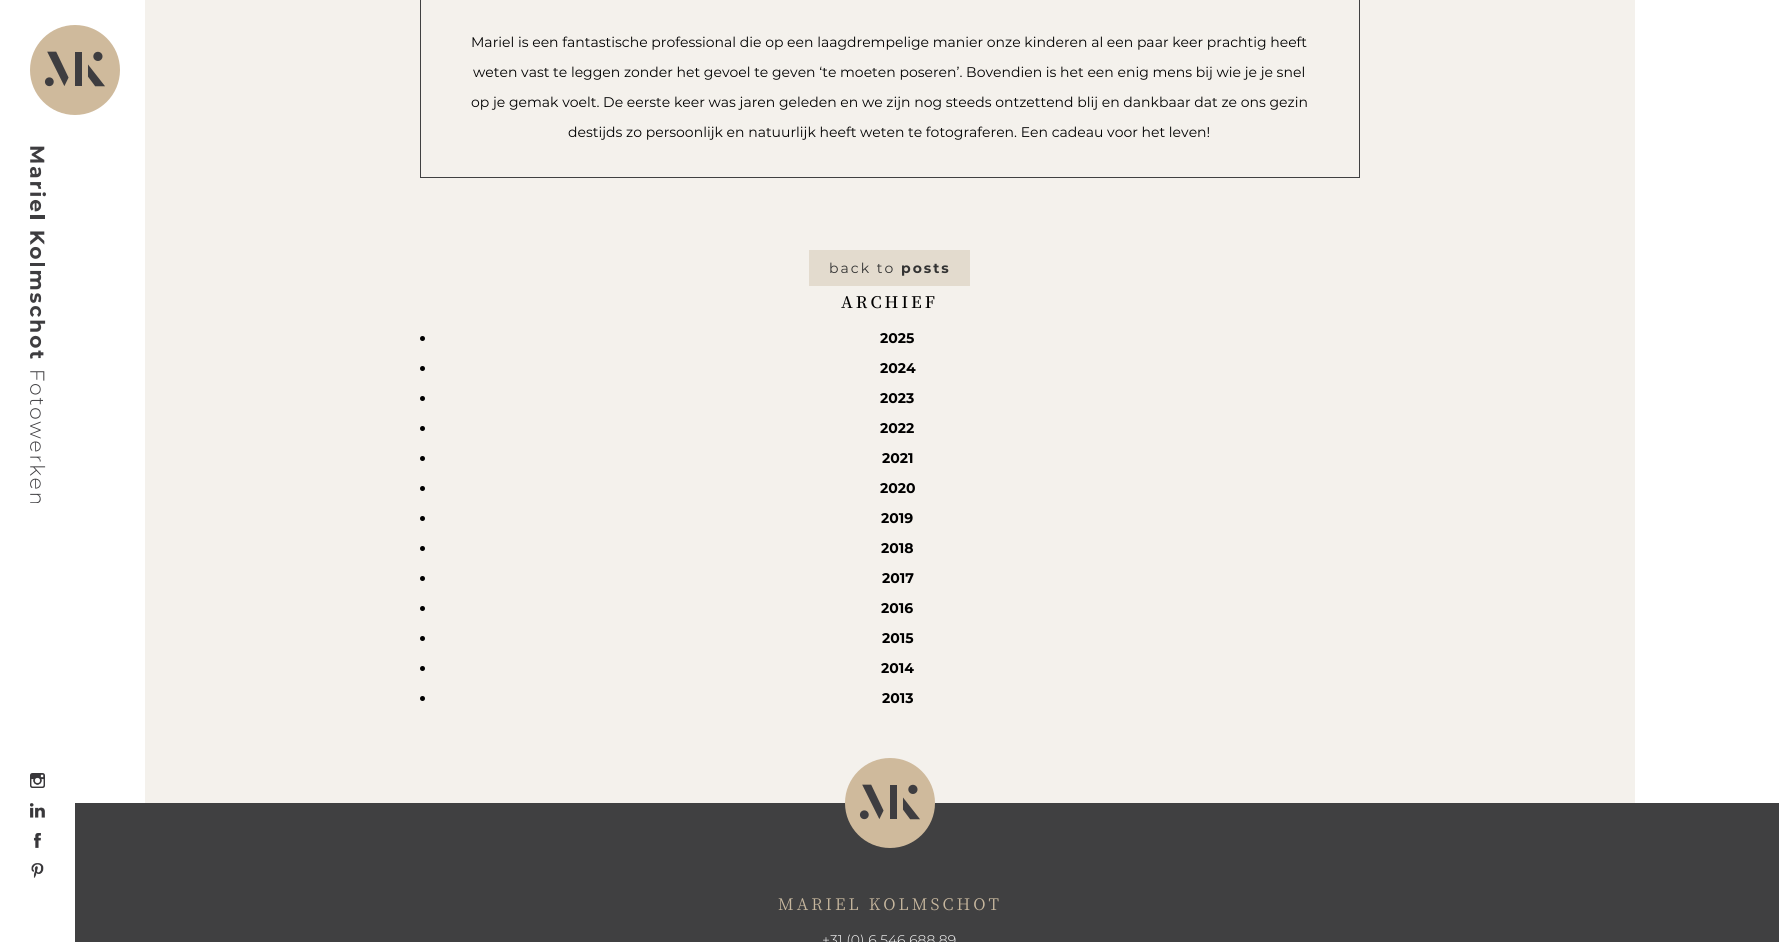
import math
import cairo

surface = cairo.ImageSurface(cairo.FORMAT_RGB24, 1779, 942)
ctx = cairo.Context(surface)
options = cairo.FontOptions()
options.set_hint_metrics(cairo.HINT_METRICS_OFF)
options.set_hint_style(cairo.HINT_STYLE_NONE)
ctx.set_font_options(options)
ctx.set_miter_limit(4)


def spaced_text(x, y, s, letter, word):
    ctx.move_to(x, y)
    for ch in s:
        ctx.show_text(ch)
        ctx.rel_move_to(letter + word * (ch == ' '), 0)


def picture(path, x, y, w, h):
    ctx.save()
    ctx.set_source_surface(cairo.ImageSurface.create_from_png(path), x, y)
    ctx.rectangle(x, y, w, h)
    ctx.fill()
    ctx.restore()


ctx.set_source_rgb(1, 1, 1)
ctx.paint()
picture("img1.png", 30, 25, 90, 90)
picture("img2.png", 30, 146, 16, 357)
picture("img3.png", 30, 773, 15, 15)
picture("img4.png", 30, 803, 15, 15)
picture("img5.png", 33, 833, 8, 15)
picture("img6.png", 31, 863, 13, 15)
ctx.set_source_rgb(0.957, 0.945, 0.925)
ctx.rectangle(145, 0, 1490, 803)
ctx.fill()
ctx.rectangle(420.5, -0.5, 939, 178)
ctx.set_source_rgb(0.251, 0.251, 0.255)
ctx.set_line_width(1)
ctx.stroke()
ctx.select_font_face("Montserrat")
ctx.set_font_size(14)
ctx.set_source_rgb(0, 0, 0)
ctx.move_to(471, 47)
ctx.show_text("Mariel is een fantastische professional die op een laagdrempelige manier onze kinderen al een paar keer prachtig heeft")
ctx.move_to(473, 77)
ctx.show_text("weten vast te leggen zonder het gevoel te geven ‘te moeten poseren’. Bovendien is het een enig mens bij wie je je snel")
ctx.move_to(471, 107)
ctx.show_text("op je gemak voelt. De eerste keer was jaren geleden en we zijn nog steeds ontzettend blij en dankbaar dat ze ons gezin")
ctx.move_to(568, 137)
ctx.show_text("destijds zo persoonlijk en natuurlijk heeft weten te fotograferen. Een cadeau voor het leven!")
ctx.set_source_rgb(0.89, 0.859, 0.808)
ctx.rectangle(809, 250, 161, 36)
ctx.fill()
ctx.set_source_rgb(0.2, 0.2, 0.2)
spaced_text(829, 273, "back to", 2, 0)
ctx.select_font_face("Montserrat", cairo.FONT_SLANT_NORMAL, cairo.FONT_WEIGHT_BOLD)
spaced_text(901, 273, "posts", 2, 0)
ctx.select_font_face("Noto Serif JP SemiBold")
ctx.set_font_size(16)
ctx.set_source_rgb(0, 0, 0)
spaced_text(841, 308, "ARCHIEF", 3, 0)
ctx.new_path()
ctx.arc(422.5, 338.5, 2.5, 0, 2 * math.pi)
ctx.fill()
ctx.select_font_face("Montserrat", cairo.FONT_SLANT_NORMAL, cairo.FONT_WEIGHT_BOLD)
ctx.set_font_size(14)
ctx.move_to(880, 343)
ctx.show_text("2025")
ctx.new_path()
ctx.arc(422.5, 368.5, 2.5, 0, 2 * math.pi)
ctx.fill()
ctx.move_to(880, 373)
ctx.show_text("2024")
ctx.new_path()
ctx.arc(422.5, 398.5, 2.5, 0, 2 * math.pi)
ctx.fill()
ctx.move_to(880, 403)
ctx.show_text("2023")
ctx.new_path()
ctx.arc(422.5, 428.5, 2.5, 0, 2 * math.pi)
ctx.fill()
ctx.move_to(880, 433)
ctx.show_text("2022")
ctx.new_path()
ctx.arc(422.5, 458.5, 2.5, 0, 2 * math.pi)
ctx.fill()
ctx.move_to(882, 463)
ctx.show_text("2021")
ctx.new_path()
ctx.arc(422.5, 488.5, 2.5, 0, 2 * math.pi)
ctx.fill()
ctx.move_to(880, 493)
ctx.show_text("2020")
ctx.new_path()
ctx.arc(422.5, 518.5, 2.5, 0, 2 * math.pi)
ctx.fill()
ctx.move_to(881, 523)
ctx.show_text("2019")
ctx.new_path()
ctx.arc(422.5, 548.5, 2.5, 0, 2 * math.pi)
ctx.fill()
ctx.move_to(881, 553)
ctx.show_text("2018")
ctx.new_path()
ctx.arc(422.5, 578.5, 2.5, 0, 2 * math.pi)
ctx.fill()
ctx.move_to(882, 583)
ctx.show_text("2017")
ctx.new_path()
ctx.arc(422.5, 608.5, 2.5, 0, 2 * math.pi)
ctx.fill()
ctx.move_to(881, 613)
ctx.show_text("2016")
ctx.new_path()
ctx.arc(422.5, 638.5, 2.5, 0, 2 * math.pi)
ctx.fill()
ctx.move_to(882, 643)
ctx.show_text("2015")
ctx.new_path()
ctx.arc(422.5, 668.5, 2.5, 0, 2 * math.pi)
ctx.fill()
ctx.move_to(881, 673)
ctx.show_text("2014")
ctx.new_path()
ctx.arc(422.5, 698.5, 2.5, 0, 2 * math.pi)
ctx.fill()
ctx.move_to(882, 703)
ctx.show_text("2013")
ctx.set_source_rgb(0.251, 0.251, 0.255)
ctx.rectangle(75, 803, 1704, 139)
ctx.fill()
picture("img7.png", 845, 758, 90, 90)
ctx.select_font_face("Noto Serif JP")
ctx.set_font_size(16)
ctx.set_source_rgb(0.78, 0.718, 0.62)
spaced_text(778, 910, "MARIEL KOLMSCHOT", 3, 0)
ctx.select_font_face("Montserrat Light")
ctx.set_font_size(14)
ctx.set_source_rgb(1, 1, 1)
ctx.move_to(822, 945)
ctx.show_text("+31 (0) 6 546 688 89")
surface.write_to_png("page.png")
